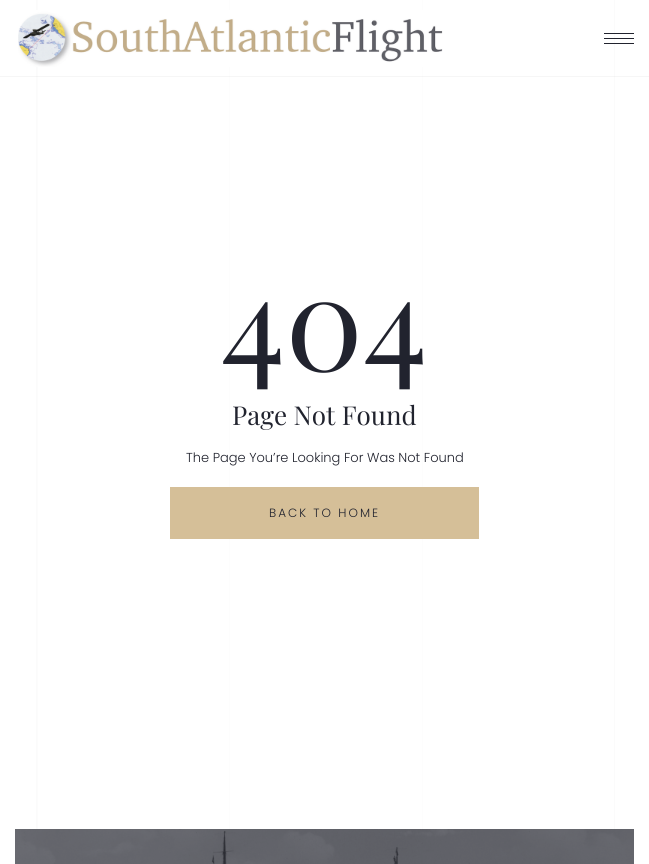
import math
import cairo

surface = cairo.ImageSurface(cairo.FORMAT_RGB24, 649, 864)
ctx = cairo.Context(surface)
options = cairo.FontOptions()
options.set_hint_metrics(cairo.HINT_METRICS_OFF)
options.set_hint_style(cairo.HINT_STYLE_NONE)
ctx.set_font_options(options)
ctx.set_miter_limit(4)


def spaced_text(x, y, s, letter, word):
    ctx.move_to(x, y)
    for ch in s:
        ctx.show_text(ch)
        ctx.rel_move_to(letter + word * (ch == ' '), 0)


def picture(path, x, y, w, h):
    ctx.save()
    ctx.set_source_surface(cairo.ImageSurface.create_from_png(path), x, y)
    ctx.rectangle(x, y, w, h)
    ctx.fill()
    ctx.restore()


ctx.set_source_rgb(1, 1, 1)
ctx.paint()
picture("img2.png", 36, 0, 579, 829)
picture("img1.png", 18, 10, 425, 57)
ctx.set_source_rgb(0.129, 0.137, 0.18)
ctx.rectangle(604, 33, 30, 1)
ctx.fill()
ctx.rectangle(604, 38, 30, 1)
ctx.fill()
ctx.rectangle(604, 43, 30, 1)
ctx.fill()
ctx.set_source_rgba(0.706, 0.706, 0.706, 0.11)
ctx.rectangle(0, 76, 649, 1)
ctx.fill()
ctx.select_font_face("Playfair Display")
ctx.set_font_size(130)
ctx.set_source_rgb(0.129, 0.137, 0.18)
ctx.move_to(221, 371)
ctx.show_text("404")
ctx.set_font_size(26)
ctx.move_to(232, 425)
ctx.show_text("Page Not Found")
ctx.select_font_face("Poppins Light")
ctx.set_font_size(13)
ctx.move_to(186, 462)
ctx.show_text("The Page You’re Looking For Was Not Found")
ctx.set_source_rgb(0.835, 0.749, 0.596)
ctx.rectangle(170, 487, 309, 52)
ctx.fill()
ctx.set_font_size(12)
ctx.set_source_rgb(0.129, 0.137, 0.18)
spaced_text(269, 517, "BACK TO HOME", 2, 0)
picture("img3.png", 15, 829, 619, 35)
surface.write_to_png("page.png")
